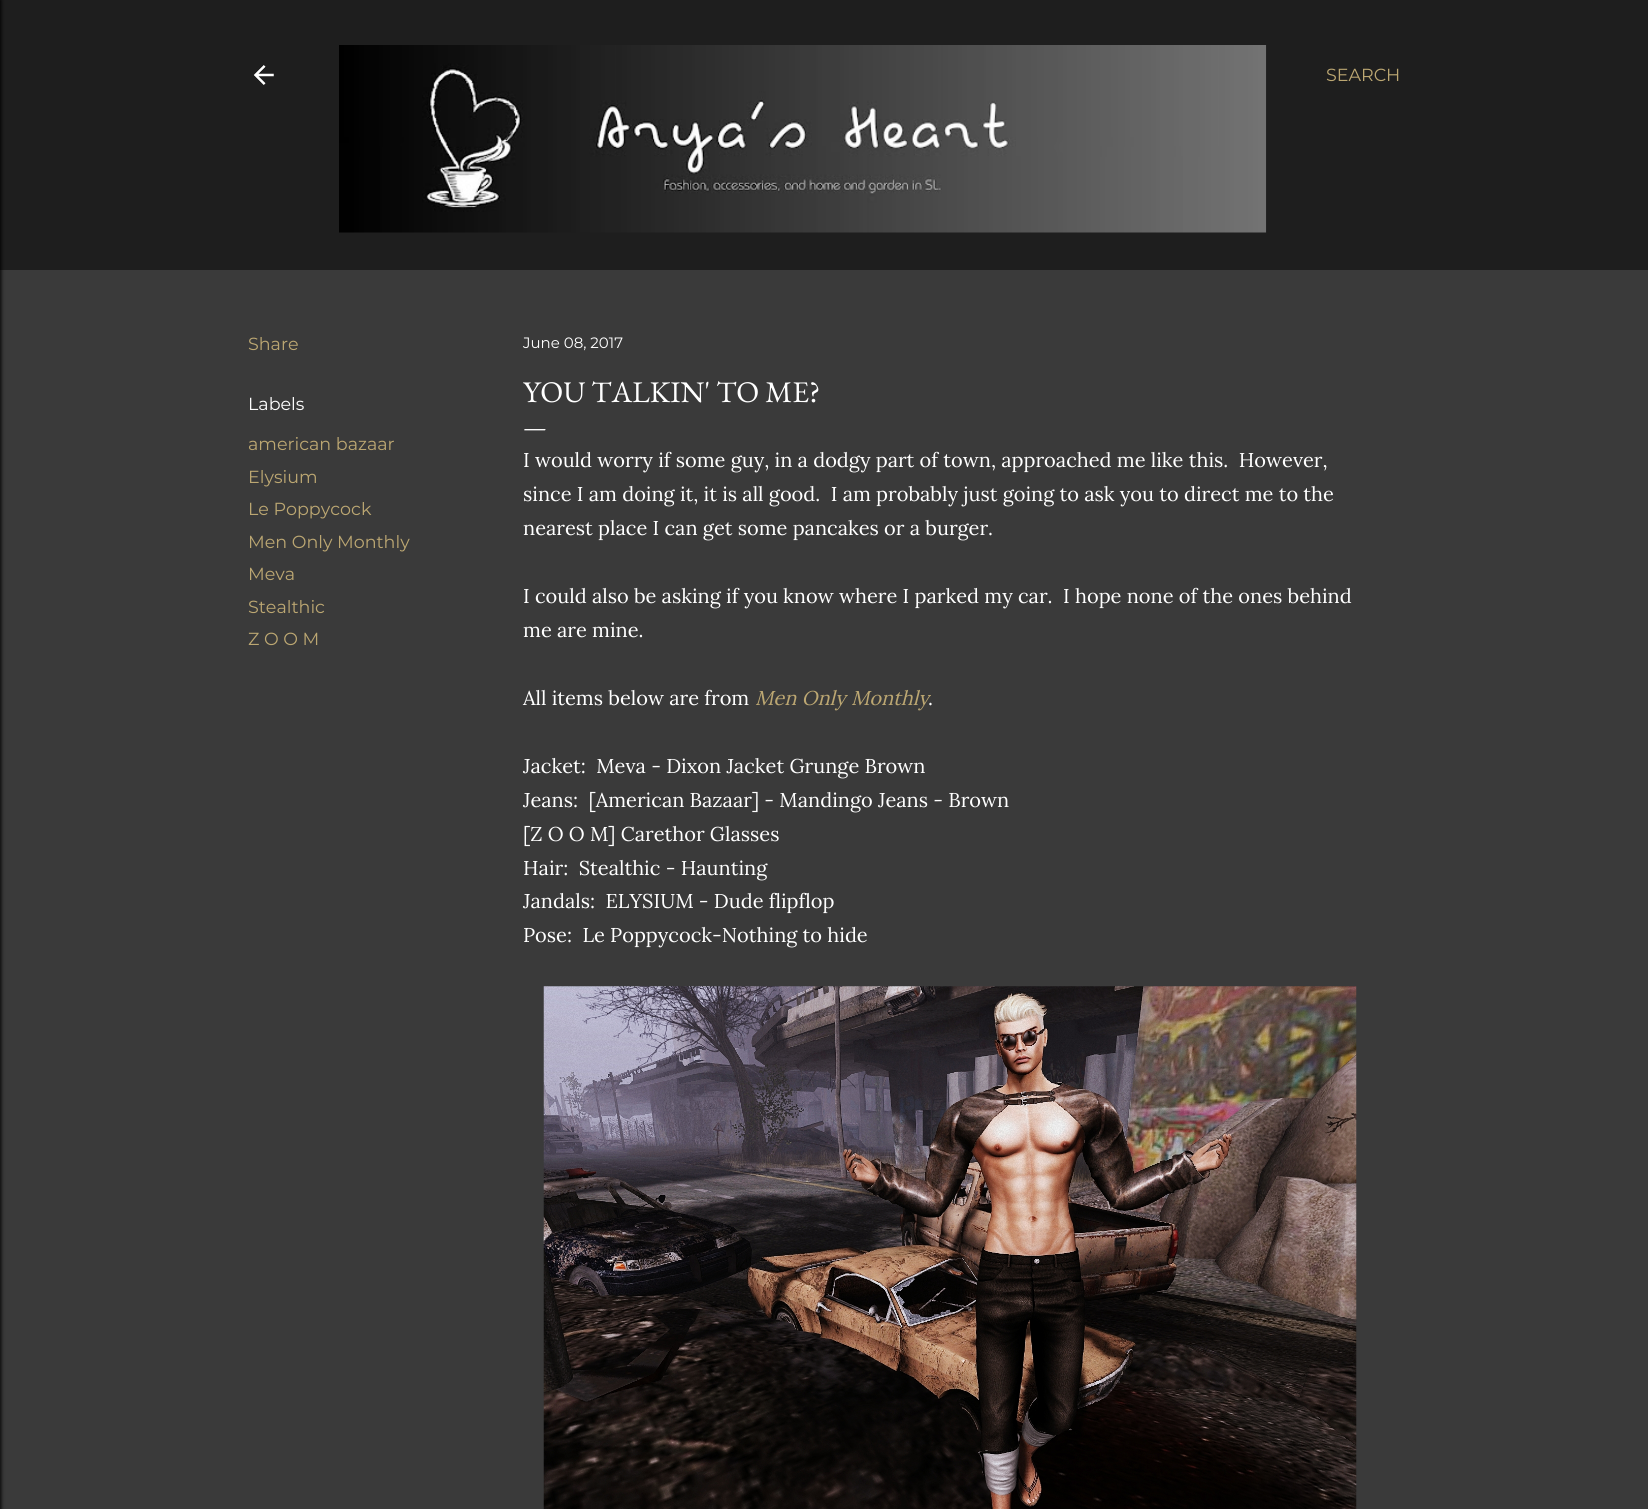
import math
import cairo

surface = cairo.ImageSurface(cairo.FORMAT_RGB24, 1648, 1509)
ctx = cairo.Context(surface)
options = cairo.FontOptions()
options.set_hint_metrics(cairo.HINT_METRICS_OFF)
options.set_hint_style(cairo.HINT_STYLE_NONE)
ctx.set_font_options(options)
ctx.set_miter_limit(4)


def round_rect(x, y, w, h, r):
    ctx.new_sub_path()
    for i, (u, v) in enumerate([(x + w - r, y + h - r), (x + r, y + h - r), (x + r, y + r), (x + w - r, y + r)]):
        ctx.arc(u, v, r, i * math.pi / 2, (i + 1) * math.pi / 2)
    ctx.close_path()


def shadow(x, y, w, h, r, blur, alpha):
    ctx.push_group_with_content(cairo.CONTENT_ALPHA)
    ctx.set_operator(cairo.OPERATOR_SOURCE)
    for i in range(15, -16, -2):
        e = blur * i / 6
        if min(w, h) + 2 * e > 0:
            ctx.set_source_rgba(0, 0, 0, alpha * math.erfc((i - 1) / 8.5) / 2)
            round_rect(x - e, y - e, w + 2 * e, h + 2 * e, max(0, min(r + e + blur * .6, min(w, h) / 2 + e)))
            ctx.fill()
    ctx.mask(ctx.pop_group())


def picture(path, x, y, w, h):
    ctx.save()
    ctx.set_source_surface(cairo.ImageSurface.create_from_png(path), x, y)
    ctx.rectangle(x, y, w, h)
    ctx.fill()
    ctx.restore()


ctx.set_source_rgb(0.227, 0.227, 0.227)
ctx.paint()
ctx.set_source_rgb(0.118, 0.118, 0.118)
ctx.rectangle(0, 0, 1648, 270)
ctx.fill()
ctx.set_source_rgb(0, 0, 0)
shadow(-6, 0, 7, 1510, 0, 2, 1)
picture("img1.png", 253, 65, 21, 20)
picture("img2.png", 339, 45, 928, 188)
ctx.select_font_face("Montserrat")
ctx.set_font_size(17.5)
ctx.set_source_rgb(0.737, 0.655, 0.447)
ctx.move_to(1326, 81)
ctx.show_text("SEARCH")
ctx.move_to(248, 350)
ctx.show_text("Share")
ctx.set_source_rgb(1, 1, 1)
ctx.move_to(248, 410)
ctx.show_text("Labels")
ctx.set_source_rgb(0.737, 0.655, 0.447)
ctx.move_to(248, 450)
ctx.show_text("american bazaar")
ctx.move_to(248, 483)
ctx.show_text("Elysium")
ctx.move_to(248, 515)
ctx.show_text("Le Poppycock")
ctx.move_to(248, 548)
ctx.show_text("Men Only Monthly")
ctx.move_to(248, 580)
ctx.show_text("Meva")
ctx.move_to(248, 613)
ctx.show_text("Stealthic")
ctx.move_to(248, 645)
ctx.show_text("Z O O M")
ctx.set_font_size(15)
ctx.set_source_rgb(1, 1, 1)
ctx.move_to(523, 348)
ctx.show_text("June 08, 2017")
ctx.select_font_face("EB Garamond")
ctx.set_font_size(30)
ctx.move_to(523, 402)
ctx.show_text("YOU TALKIN' TO ME?")
ctx.set_font_size(25)
ctx.move_to(523, 435)
ctx.show_text("—")
ctx.select_font_face("Lora")
ctx.set_font_size(20)
ctx.move_to(523, 467)
ctx.show_text("I would worry if some guy, in a dodgy part of town, approached me like this.  However,")
ctx.move_to(523, 501)
ctx.show_text("since I am doing it, it is all good.  I am probably just going to ask you to direct me to the")
ctx.move_to(523, 535)
ctx.show_text("nearest place I can get some pancakes or a burger.")
ctx.move_to(523, 603)
ctx.show_text("I could also be asking if you know where I parked my car.  I hope none of the ones behind")
ctx.move_to(523, 637)
ctx.show_text("me are mine.")
ctx.move_to(523, 705)
ctx.show_text("All items below are from")
ctx.select_font_face("Lora", cairo.FONT_SLANT_ITALIC)
ctx.set_source_rgb(0.737, 0.655, 0.447)
ctx.move_to(755, 705)
ctx.show_text("Men Only Monthly")
ctx.select_font_face("Lora")
ctx.set_source_rgb(1, 1, 1)
ctx.move_to(928, 705)
ctx.show_text(".")
ctx.move_to(523, 773)
ctx.show_text("Jacket:  Meva - Dixon Jacket Grunge Brown")
ctx.move_to(523, 807)
ctx.show_text("Jeans:  [American Bazaar] - Mandingo Jeans - Brown")
ctx.move_to(523, 841)
ctx.show_text("[Z O O M] Carethor Glasses")
ctx.move_to(523, 875)
ctx.show_text("Hair:  Stealthic - Haunting")
ctx.move_to(523, 908)
ctx.show_text("Jandals:  ELYSIUM - Dude flipflop")
ctx.move_to(523, 942)
ctx.show_text("Pose:  Le Poppycock-Nothing to hide")
picture("img3.png", 543, 986, 814, 523)
surface.write_to_png("page.png")
